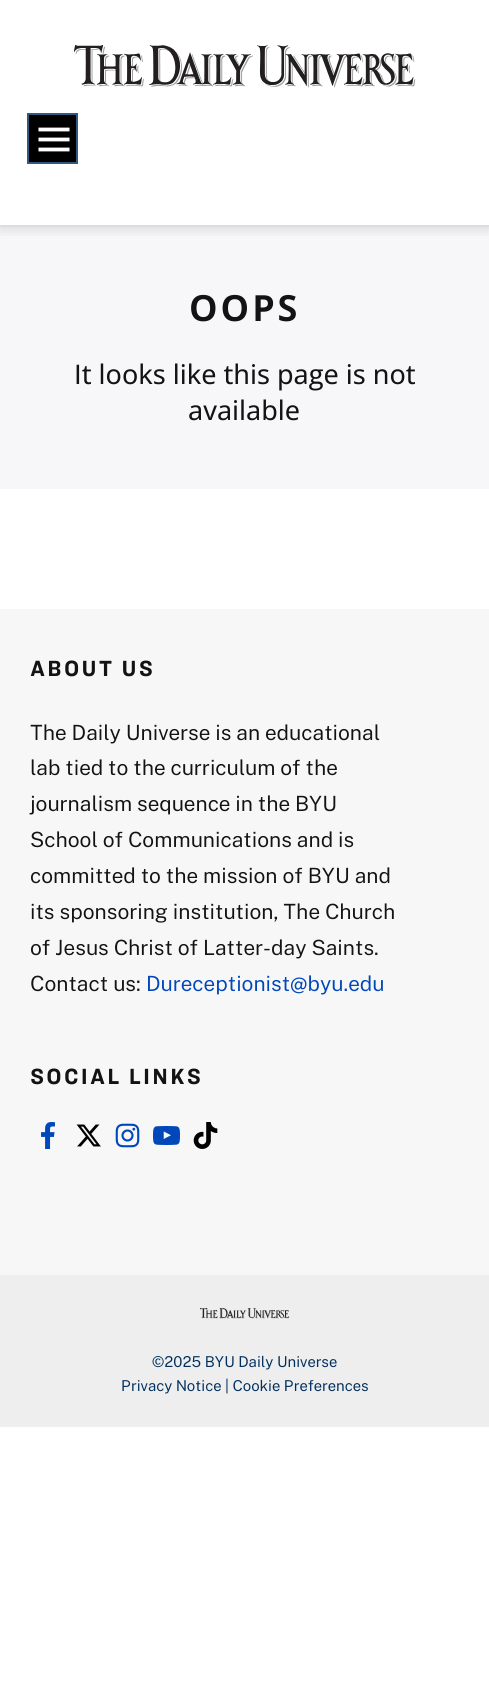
import math
import cairo

surface = cairo.ImageSurface(cairo.FORMAT_RGB24, 489, 1688)
ctx = cairo.Context(surface)
options = cairo.FontOptions()
options.set_hint_metrics(cairo.HINT_METRICS_OFF)
options.set_hint_style(cairo.HINT_STYLE_NONE)
ctx.set_font_options(options)
ctx.set_miter_limit(4)


def spaced_text(x, y, s, letter, word):
    ctx.move_to(x, y)
    for ch in s:
        ctx.show_text(ch)
        ctx.rel_move_to(letter + word * (ch == ' '), 0)


def round_rect(x, y, w, h, r):
    ctx.new_sub_path()
    for i, (u, v) in enumerate([(x + w - r, y + h - r), (x + r, y + h - r), (x + r, y + r), (x + w - r, y + r)]):
        ctx.arc(u, v, r, i * math.pi / 2, (i + 1) * math.pi / 2)
    ctx.close_path()


def shadow(x, y, w, h, r, blur, alpha):
    ctx.push_group_with_content(cairo.CONTENT_ALPHA)
    ctx.set_operator(cairo.OPERATOR_SOURCE)
    for i in range(15, -16, -2):
        e = blur * i / 6
        if min(w, h) + 2 * e > 0:
            ctx.set_source_rgba(0, 0, 0, alpha * math.erfc((i - 1) / 8.5) / 2)
            round_rect(x - e, y - e, w + 2 * e, h + 2 * e, max(0, min(r + e + blur * .6, min(w, h) / 2 + e)))
            ctx.fill()
    ctx.mask(ctx.pop_group())


def picture(path, x, y, w, h):
    ctx.save()
    ctx.set_source_surface(cairo.ImageSurface.create_from_png(path), x, y)
    ctx.rectangle(x, y, w, h)
    ctx.fill()
    ctx.restore()


ctx.set_source_rgb(1, 1, 1)
ctx.paint()
ctx.set_source_rgb(0.965, 0.965, 0.973)
ctx.rectangle(0, 227, 489, 262)
ctx.fill()
ctx.save()
ctx.rectangle(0, 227, 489, 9)
ctx.clip()
ctx.set_source_rgb(0, 0, 0)
shadow(0, 0, 489, 227, 0, 7.5, 0.16)
ctx.restore()
ctx.set_source_rgb(0.867, 0.867, 0.867)
ctx.rectangle(0, 225, 489, 2)
ctx.fill()
picture("img1.png", 74, 45, 342, 43)
ctx.set_source_rgb(0, 0, 0)
ctx.rectangle(28, 114, 49, 49)
ctx.fill_preserve()
ctx.set_source_rgb(0.2, 0.345, 0.49)
ctx.stroke()
ctx.new_path()
ctx.move_to(38.5, 129.5)
ctx.line_to(69.5, 129.5)
ctx.move_to(38.5, 139.5)
ctx.line_to(69.5, 139.5)
ctx.move_to(38.5, 149.5)
ctx.line_to(69.5, 149.5)
ctx.set_source_rgb(1, 1, 1)
ctx.set_line_width(3.8)
ctx.stroke()
ctx.select_font_face("Open Sans", cairo.FONT_SLANT_NORMAL, cairo.FONT_WEIGHT_BOLD)
ctx.set_font_size(36)
ctx.set_source_rgb(0.078, 0.078, 0.078)
spaced_text(189, 321, "OOPS", 3, 0)
ctx.select_font_face("Open Sans")
ctx.set_font_size(27)
ctx.move_to(74, 384)
ctx.show_text("It looks like this page is not")
ctx.move_to(188, 420)
ctx.show_text("available")
ctx.set_source_rgb(0.965, 0.965, 0.965)
ctx.rectangle(0, 609, 489, 666)
ctx.fill()
ctx.select_font_face("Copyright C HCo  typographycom")
ctx.set_font_size(21)
ctx.set_source_rgb(0.078, 0.078, 0.078)
spaced_text(30, 676, "ABOUT US", 2.25, 0)
ctx.select_font_face("Public Sans")
ctx.move_to(30, 740)
ctx.show_text("The Daily Universe is an educational")
ctx.move_to(30, 775)
ctx.show_text("lab tied to the curriculum of the")
ctx.move_to(30, 811)
ctx.show_text("journalism sequence in the BYU")
ctx.move_to(30, 847)
ctx.show_text("School of Communications and is")
ctx.move_to(30, 883)
ctx.show_text("committed to the mission of BYU and")
ctx.move_to(30, 919)
ctx.show_text("its sponsoring institution, The Church")
ctx.move_to(30, 955)
ctx.show_text("of Jesus Christ of Latter-day Saints.")
ctx.move_to(30, 991)
ctx.show_text("Contact us:")
ctx.set_source_rgb(0, 0.278, 0.729)
ctx.move_to(146, 991)
ctx.show_text("Dureceptionist@byu.edu")
ctx.select_font_face("Copyright C HCo  typographycom")
ctx.set_source_rgb(0.078, 0.078, 0.078)
spaced_text(30, 1084, "SOCIAL LINKS", 2.25, 0)
picture("img2.png", 41, 1122, 14, 27)
picture("img3.png", 76, 1124, 25, 23)
picture("img4.png", 115, 1123, 25, 25)
picture("img5.png", 153, 1126, 27, 19)
picture("img6.png", 193, 1122, 25, 27)
ctx.set_source_rgb(0.933, 0.933, 0.933)
ctx.rectangle(0, 1275, 489, 152)
ctx.fill()
picture("img7.png", 200, 1308, 90, 11)
ctx.select_font_face("Public Sans")
ctx.set_font_size(15)
ctx.set_source_rgb(0, 0.18, 0.365)
ctx.move_to(152, 1367)
ctx.show_text("©2025 BYU Daily Universe")
ctx.move_to(121, 1391)
ctx.show_text("Privacy Notice | Cookie Preferences")
surface.write_to_png("page.png")
